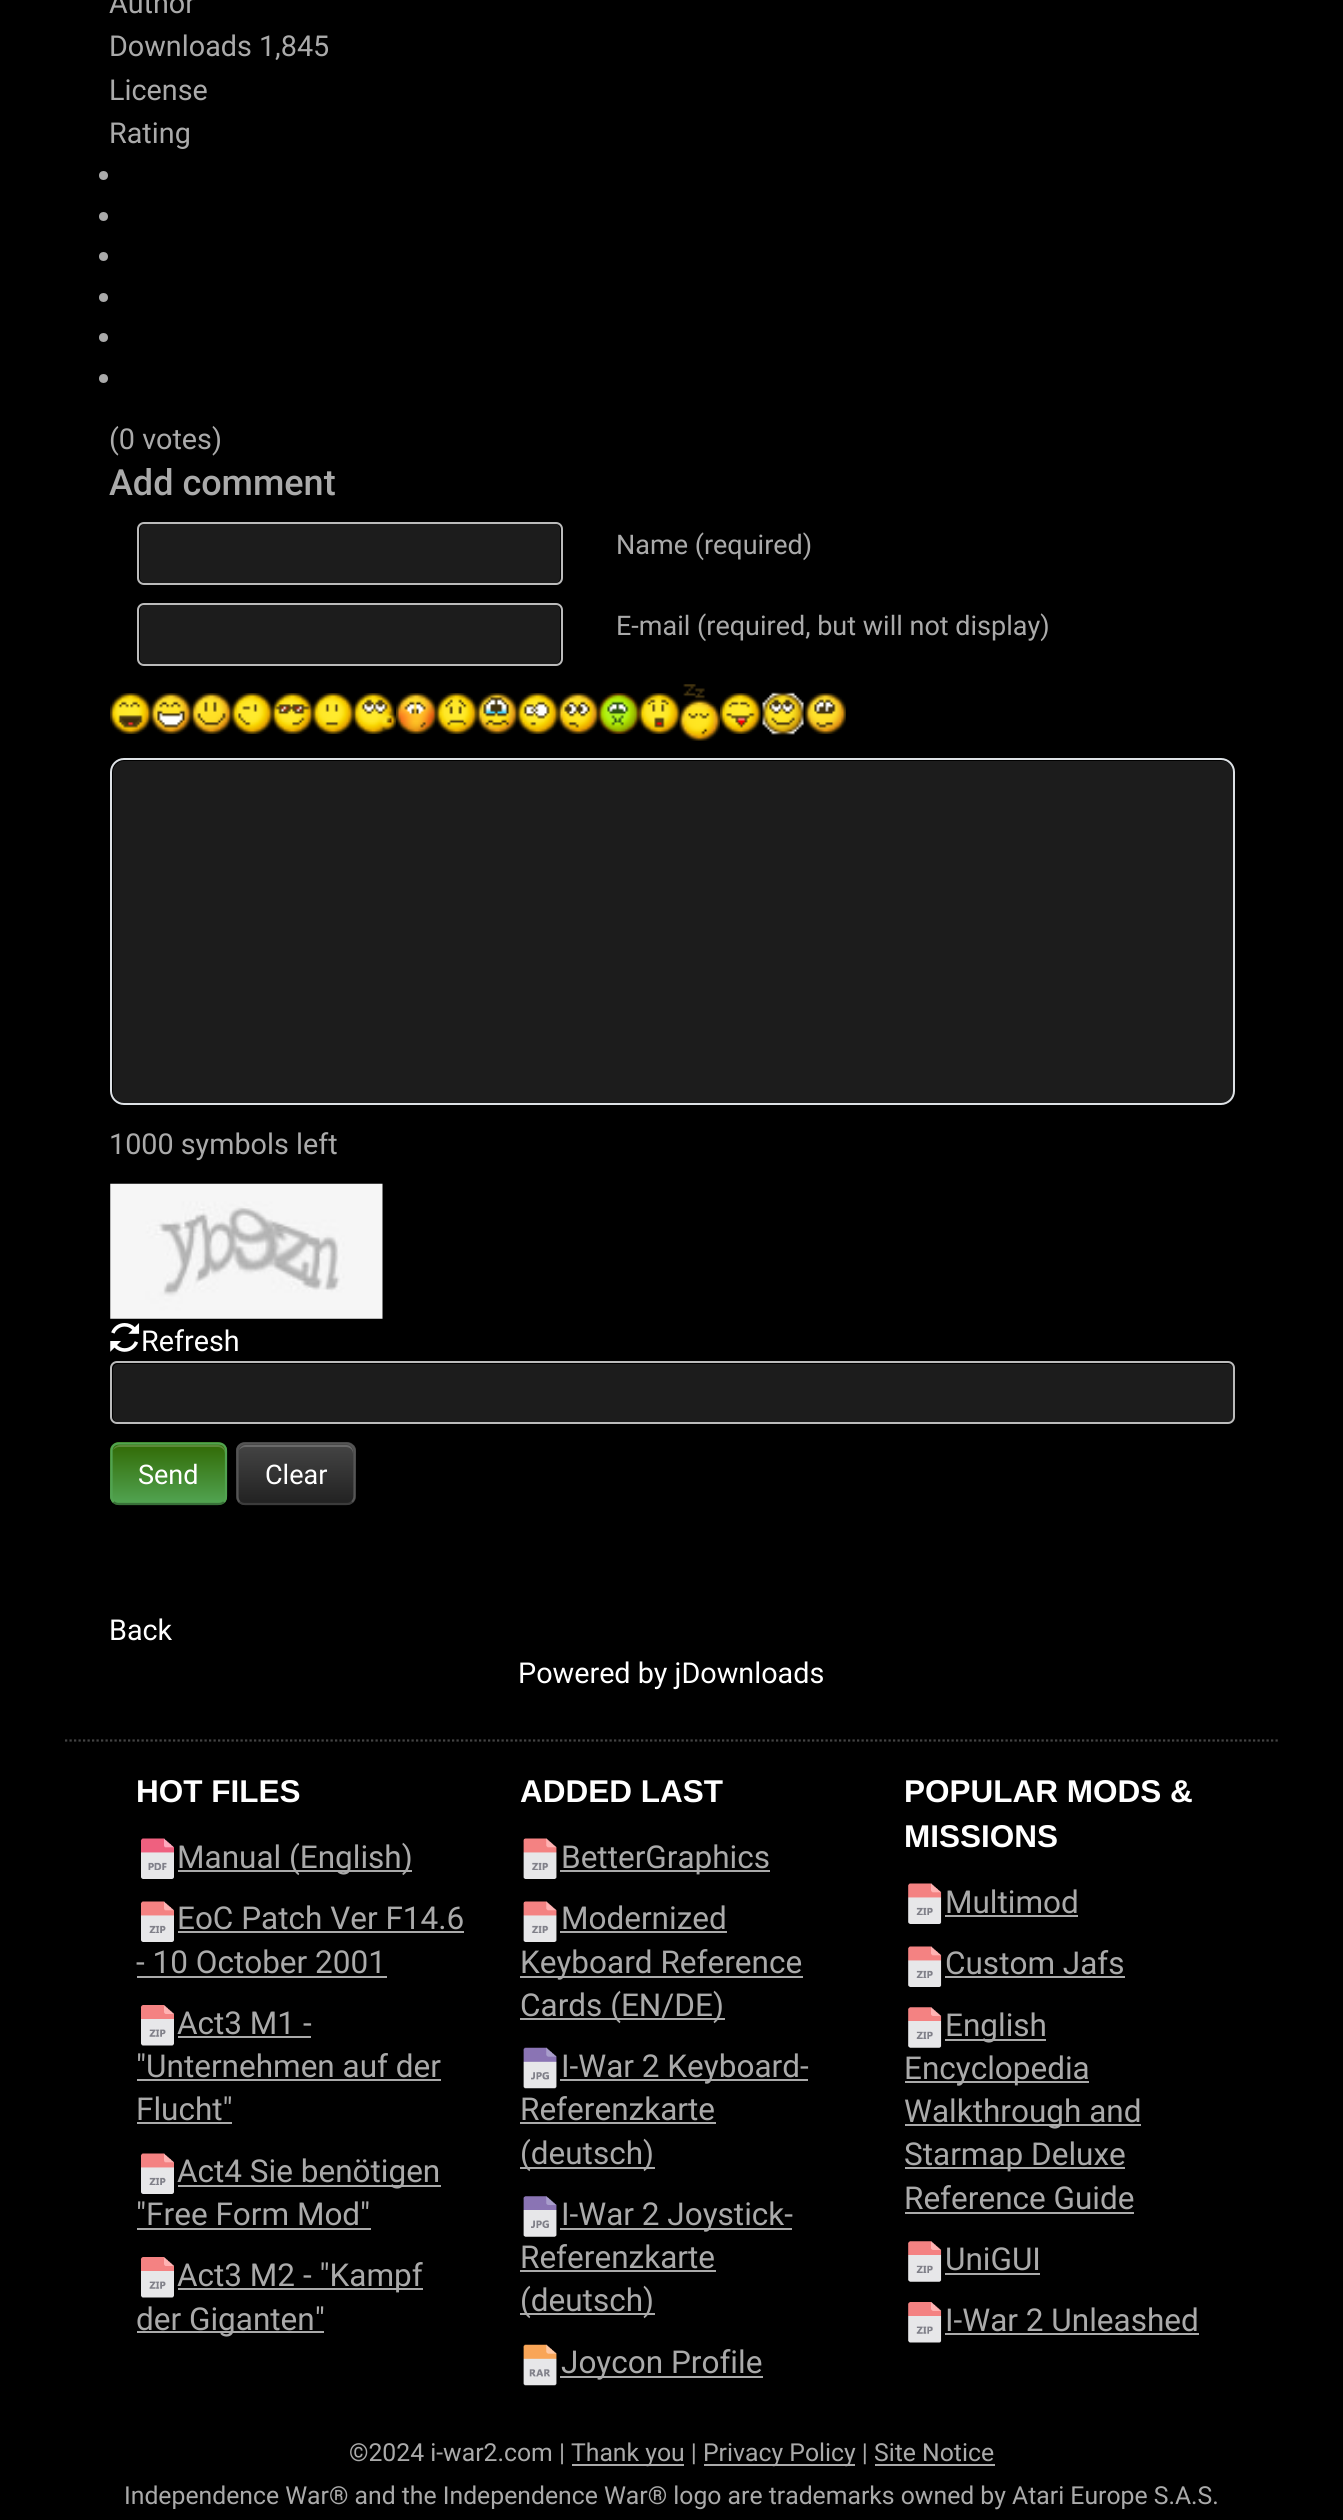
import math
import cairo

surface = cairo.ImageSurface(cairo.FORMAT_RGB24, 1343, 2520)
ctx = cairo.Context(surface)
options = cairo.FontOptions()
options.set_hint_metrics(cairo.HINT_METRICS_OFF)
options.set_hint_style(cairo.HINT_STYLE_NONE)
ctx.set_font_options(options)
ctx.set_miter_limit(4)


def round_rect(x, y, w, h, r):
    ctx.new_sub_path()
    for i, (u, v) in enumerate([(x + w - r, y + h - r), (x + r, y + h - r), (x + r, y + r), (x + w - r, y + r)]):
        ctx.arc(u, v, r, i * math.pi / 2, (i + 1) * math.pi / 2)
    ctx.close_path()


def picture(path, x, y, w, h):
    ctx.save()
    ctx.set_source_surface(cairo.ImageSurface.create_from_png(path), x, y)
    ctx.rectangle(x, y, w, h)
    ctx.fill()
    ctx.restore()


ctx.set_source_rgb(0, 0, 0)
ctx.paint()
ctx.select_font_face("Roboto")
ctx.set_font_size(28.75)
ctx.set_source_rgb(0.667, 0.667, 0.667)
ctx.move_to(109, 13)
ctx.show_text("Author")
ctx.move_to(109, 56)
ctx.show_text("Downloads 1,845")
ctx.move_to(109, 100)
ctx.show_text("License")
ctx.move_to(109, 143)
ctx.show_text("Rating")
ctx.new_path()
ctx.arc(103.5, 175.5, 4.5, 0, 2 * math.pi)
ctx.fill()
ctx.arc(103.5, 216.5, 4.5, 0, 2 * math.pi)
ctx.fill()
ctx.arc(103.5, 256.5, 4.5, 0, 2 * math.pi)
ctx.fill()
ctx.arc(103.5, 297.5, 4.5, 0, 2 * math.pi)
ctx.fill()
ctx.arc(103.5, 337.5, 4.5, 0, 2 * math.pi)
ctx.fill()
ctx.arc(103.5, 378.5, 4.5, 0, 2 * math.pi)
ctx.fill()
ctx.move_to(109, 449)
ctx.show_text("(0 votes)")
ctx.select_font_face("Roboto Medium")
ctx.set_font_size(36)
ctx.move_to(109, 495)
ctx.show_text("Add comment")
ctx.set_source_rgb(0.11, 0.11, 0.11)
round_rect(140, 524, 420, 59, 5)
ctx.fill()
round_rect(138, 523, 424, 61, 6)
ctx.set_source_rgb(0.733, 0.733, 0.733)
ctx.stroke()
ctx.select_font_face("Roboto")
ctx.set_font_size(27)
ctx.set_source_rgb(0.667, 0.667, 0.667)
ctx.move_to(616, 554)
ctx.show_text("Name (required)")
ctx.set_source_rgb(0.11, 0.11, 0.11)
round_rect(140, 605, 420, 59, 5)
ctx.fill()
round_rect(138, 604, 424, 61, 6)
ctx.set_source_rgb(0.733, 0.733, 0.733)
ctx.stroke()
ctx.set_source_rgb(0.667, 0.667, 0.667)
ctx.move_to(616, 635)
ctx.show_text("E-mail (required, but will not display)")
picture("img1.png", 110, 693, 41, 41)
picture("img2.png", 150, 693, 42, 41)
picture("img3.png", 191, 693, 41, 41)
picture("img4.png", 231, 693, 42, 41)
picture("img5.png", 272, 693, 41, 41)
picture("img6.png", 312, 693, 42, 41)
picture("img7.png", 353, 693, 43, 41)
picture("img8.png", 396, 693, 41, 41)
picture("img9.png", 436, 693, 41, 41)
picture("img10.png", 477, 693, 41, 41)
picture("img11.png", 517, 693, 41, 41)
picture("img12.png", 558, 693, 41, 41)
picture("img13.png", 598, 693, 41, 41)
picture("img14.png", 639, 693, 41, 41)
picture("img15.png", 679, 684, 41, 57)
picture("img16.png", 720, 693, 41, 41)
picture("img17.png", 762, 692, 42, 43)
picture("img18.png", 805, 693, 41, 41)
ctx.set_source_rgb(0.11, 0.11, 0.11)
round_rect(113, 761, 1120, 342, 11)
ctx.fill()
round_rect(111, 759, 1123, 345, 13)
ctx.set_source_rgb(0.871, 0.886, 0.902)
ctx.stroke()
ctx.set_font_size(28.75)
ctx.set_source_rgb(0.667, 0.667, 0.667)
ctx.move_to(109, 1154)
ctx.show_text("1000 symbols left")
picture("img19.png", 110, 1183, 273, 136)
picture("img20.png", 110, 1323, 30, 29)
ctx.set_source_rgb(1, 1, 1)
ctx.move_to(141, 1351)
ctx.show_text("Refresh")
ctx.set_source_rgb(0.11, 0.11, 0.11)
round_rect(113, 1364, 1120, 58, 5)
ctx.fill()
round_rect(111, 1362, 1123, 61, 6)
ctx.set_source_rgb(0.733, 0.733, 0.733)
ctx.stroke()
ctx.set_source_rgb(0.196, 0.42, 0.024)
round_rect(110, 1442, 117, 63, 9)
ctx.fill()
ctx.save()
round_rect(110, 1442, 117, 63, 9)
ctx.clip()
gradient = cairo.LinearGradient(169, 1445, 169, 1503)
gradient.add_color_stop_rgba(0, 0.196, 0.42, 0.024, 1)
gradient.add_color_stop_rgba(1, 0.318, 0.639, 0.318, 1)
ctx.set_source(gradient)
ctx.rectangle(110, 1445, 117, 58)
ctx.fill()
ctx.restore()
ctx.set_source_rgba(1, 1, 1, 0.2)
ctx.new_path()
ctx.move_to(119, 1447)
ctx.line_to(218, 1447)
ctx.curve_to(222, 1447, 225, 1450, 225, 1454)
ctx.line_to(225, 1452)
ctx.curve_to(225, 1448, 222, 1445, 218, 1445)
ctx.line_to(120, 1445)
ctx.curve_to(117, 1445, 114, 1447, 113, 1450)
ctx.curve_to(115, 1448, 117, 1447, 119, 1447)
ctx.close_path()
ctx.fill()
ctx.new_path()
ctx.move_to(224, 1502)
ctx.curve_to(222.5, 1503.5, 220.5, 1504, 218, 1504)
ctx.line_to(119, 1504)
ctx.curve_to(117, 1504, 115, 1503.5, 113.5, 1502)
ctx.set_source_rgb(0.22, 0.439, 0.22)
ctx.set_line_width(2.2)
ctx.stroke()
ctx.new_path()
ctx.move_to(113.5, 1502)
ctx.curve_to(112, 1500.5, 111.5, 1498.5, 111.5, 1496)
ctx.line_to(111.5, 1451)
ctx.curve_to(111.5, 1449, 112, 1447, 113.5, 1445.5)
ctx.curve_to(115, 1444, 117, 1443.5, 119, 1443.5)
ctx.line_to(218, 1443.5)
ctx.curve_to(220.5, 1443.5, 222.5, 1444, 224, 1445.5)
ctx.curve_to(225.5, 1447, 226, 1449, 226, 1451)
ctx.line_to(226, 1496)
ctx.curve_to(226, 1498.5, 225.5, 1500.5, 224, 1502)
ctx.set_source_rgb(0.318, 0.639, 0.318)
ctx.stroke()
ctx.set_font_size(27)
ctx.set_source_rgb(1, 1, 1)
ctx.move_to(138, 1484)
ctx.show_text("Send")
ctx.set_source_rgb(0.212, 0.212, 0.212)
round_rect(236, 1442, 120, 63, 9)
ctx.fill()
ctx.save()
round_rect(236, 1442, 120, 63, 9)
ctx.clip()
gradient = cairo.LinearGradient(296, 1445, 296, 1503)
gradient.add_color_stop_rgba(0, 0.267, 0.267, 0.267, 1)
gradient.add_color_stop_rgba(1, 0.133, 0.133, 0.133, 1)
ctx.set_source(gradient)
ctx.rectangle(236, 1445, 120, 58)
ctx.fill()
ctx.restore()
ctx.set_source_rgba(1, 1, 1, 0.2)
ctx.new_path()
ctx.move_to(245, 1447)
ctx.line_to(346, 1447)
ctx.curve_to(350, 1447, 353, 1450, 353, 1454)
ctx.line_to(353, 1452)
ctx.curve_to(353, 1448, 350, 1445, 346, 1445)
ctx.line_to(246, 1445)
ctx.curve_to(243, 1445, 240, 1447, 239, 1450)
ctx.curve_to(241, 1448, 243, 1447, 245, 1447)
ctx.close_path()
ctx.fill()
ctx.new_path()
ctx.move_to(352, 1502)
ctx.curve_to(350.5, 1503.5, 348.5, 1504, 346.5, 1504)
ctx.line_to(245, 1504)
ctx.curve_to(243, 1504, 241, 1503.5, 239.5, 1502)
ctx.set_source_rgb(0.231, 0.231, 0.231)
ctx.stroke()
ctx.new_path()
ctx.move_to(239.5, 1502)
ctx.curve_to(238, 1500.5, 237.5, 1498.5, 237.5, 1496)
ctx.line_to(237.5, 1451)
ctx.curve_to(237.5, 1449, 238, 1447, 239.5, 1445.5)
ctx.curve_to(241, 1444, 243, 1443.5, 245, 1443.5)
ctx.line_to(346.5, 1443.5)
ctx.curve_to(348.5, 1443.5, 350.5, 1444, 352, 1445.5)
ctx.curve_to(353.5, 1447, 354.5, 1449, 354.5, 1451)
ctx.line_to(354.5, 1496)
ctx.curve_to(354.5, 1498.5, 353.5, 1500.5, 352, 1502)
ctx.set_source_rgb(0.333, 0.333, 0.333)
ctx.stroke()
ctx.set_source_rgb(1, 1, 1)
ctx.move_to(265, 1484)
ctx.show_text("Clear")
ctx.set_font_size(28.75)
ctx.move_to(109, 1640)
ctx.show_text("Back")
ctx.move_to(518, 1683)
ctx.show_text("Powered by jDownloads")
ctx.new_path()
ctx.move_to(65, 1740.5)
ctx.line_to(1280, 1740.5)
ctx.set_source_rgb(0.267, 0.267, 0.267)
ctx.set_dash([2.25, 2.25])
ctx.stroke()
ctx.select_font_face("Liberation Sans", cairo.FONT_SLANT_NORMAL, cairo.FONT_WEIGHT_BOLD)
ctx.set_font_size(31.5)
ctx.set_source_rgb(1, 1, 1)
ctx.move_to(136, 1802)
ctx.show_text("HOT FILES")
picture("img21.png", 140, 1838, 34, 41)
ctx.set_source_rgb(0.667, 0.667, 0.667)
ctx.rectangle(178, 1870, 234, 2)
ctx.fill()
ctx.select_font_face("Roboto")
ctx.move_to(177, 1868)
ctx.show_text("Manual (English)")
picture("img22.png", 140, 1901, 34, 41)
ctx.move_to(177, 1929)
ctx.show_text("EoC Patch Ver F14.6")
ctx.rectangle(178, 1931, 286, 2)
ctx.fill()
ctx.move_to(136, 1973)
ctx.show_text("- 10 October 2001")
ctx.rectangle(137, 1976, 250, 2)
ctx.fill()
picture("img23.png", 140, 2005, 34, 41)
ctx.move_to(177, 2034)
ctx.show_text("Act3 M1 -")
ctx.rectangle(178, 2036, 133, 2)
ctx.fill()
ctx.move_to(136, 2077)
ctx.show_text("\"Unternehmen auf der")
ctx.rectangle(137, 2079, 304, 2)
ctx.fill()
ctx.move_to(136, 2120)
ctx.show_text("Flucht\"")
ctx.rectangle(137, 2122, 95, 2)
ctx.fill()
picture("img22.png", 140, 2153, 34, 41)
ctx.rectangle(178, 2185, 263, 2)
ctx.fill()
ctx.move_to(177, 2182)
ctx.show_text("Act4 Sie benötigen")
ctx.move_to(136, 2225)
ctx.show_text("\"Free Form Mod\"")
ctx.rectangle(137, 2228, 234, 2)
ctx.fill()
picture("img23.png", 140, 2257, 34, 41)
ctx.rectangle(178, 2288, 245, 2)
ctx.fill()
ctx.move_to(177, 2286)
ctx.show_text("Act3 M2 - \"Kampf")
ctx.rectangle(137, 2331, 187, 2)
ctx.fill()
ctx.move_to(136, 2330)
ctx.show_text("der Giganten\"")
ctx.select_font_face("Liberation Sans", cairo.FONT_SLANT_NORMAL, cairo.FONT_WEIGHT_BOLD)
ctx.set_source_rgb(1, 1, 1)
ctx.move_to(520, 1802)
ctx.show_text("ADDED LAST")
picture("img24.png", 523, 1838, 34, 41)
ctx.set_source_rgb(0.667, 0.667, 0.667)
ctx.rectangle(560, 1870, 210, 2)
ctx.fill()
ctx.select_font_face("Roboto")
ctx.move_to(561, 1868)
ctx.show_text("BetterGraphics")
picture("img24.png", 523, 1901, 34, 41)
ctx.move_to(561, 1929)
ctx.show_text("Modernized")
ctx.rectangle(560, 1931, 167, 2)
ctx.fill()
ctx.rectangle(520, 1976, 283, 2)
ctx.fill()
ctx.move_to(520, 1973)
ctx.show_text("Keyboard Reference")
ctx.rectangle(520, 2018, 205, 2)
ctx.fill()
ctx.move_to(520, 2016)
ctx.show_text("Cards (EN/DE)")
picture("img25.png", 523, 2047, 34, 42)
ctx.rectangle(560, 2079, 248, 2)
ctx.fill()
ctx.move_to(561, 2077)
ctx.show_text("I-War 2 Keyboard-")
ctx.move_to(520, 2120)
ctx.show_text("Referenzkarte")
ctx.rectangle(520, 2122, 196, 2)
ctx.fill()
ctx.rectangle(520, 2167, 135, 2)
ctx.fill()
ctx.move_to(520, 2164)
ctx.show_text("(deutsch)")
picture("img26.png", 523, 2196, 34, 41)
ctx.rectangle(560, 2228, 232, 2)
ctx.fill()
ctx.move_to(561, 2225)
ctx.show_text("I-War 2 Joystick-")
ctx.move_to(520, 2268)
ctx.show_text("Referenzkarte")
ctx.rectangle(520, 2270, 196, 2)
ctx.fill()
ctx.rectangle(520, 2313, 135, 2)
ctx.fill()
ctx.move_to(520, 2311)
ctx.show_text("(deutsch)")
picture("img27.png", 523, 2344, 34, 42)
ctx.rectangle(560, 2376, 203, 2)
ctx.fill()
ctx.move_to(561, 2373)
ctx.show_text("Joycon Profile")
ctx.select_font_face("Liberation Sans", cairo.FONT_SLANT_NORMAL, cairo.FONT_WEIGHT_BOLD)
ctx.set_source_rgb(1, 1, 1)
ctx.move_to(904, 1802)
ctx.show_text("POPULAR MODS &")
ctx.move_to(904, 1847)
ctx.show_text("MISSIONS")
picture("img28.png", 908, 1883, 34, 41)
ctx.select_font_face("Roboto")
ctx.set_source_rgb(0.667, 0.667, 0.667)
ctx.move_to(945, 1913)
ctx.show_text("Multimod")
ctx.rectangle(945, 1915, 133, 2)
ctx.fill()
picture("img28.png", 908, 1946, 34, 41)
ctx.move_to(945, 1974)
ctx.show_text("Custom Jafs")
ctx.rectangle(945, 1976, 180, 2)
ctx.fill()
picture("img29.png", 908, 2007, 34, 41)
ctx.rectangle(945, 2039, 101, 2)
ctx.fill()
ctx.move_to(945, 2036)
ctx.show_text("English")
ctx.rectangle(905, 2081, 184, 2)
ctx.fill()
ctx.move_to(904, 2079)
ctx.show_text("Encyclopedia")
ctx.rectangle(905, 2124, 236, 2)
ctx.fill()
ctx.move_to(904, 2122)
ctx.show_text("Walkthrough and")
ctx.rectangle(905, 2167, 220, 2)
ctx.fill()
ctx.move_to(904, 2165)
ctx.show_text("Starmap Deluxe")
ctx.move_to(904, 2209)
ctx.show_text("Reference Guide")
ctx.rectangle(905, 2212, 229, 2)
ctx.fill()
picture("img29.png", 908, 2241, 34, 41)
ctx.move_to(945, 2270)
ctx.show_text("UniGUI")
ctx.rectangle(945, 2273, 95, 2)
ctx.fill()
picture("img30.png", 908, 2302, 34, 41)
ctx.move_to(945, 2331)
ctx.show_text("I-War 2 Unleashed")
ctx.rectangle(945, 2333, 254, 2)
ctx.fill()
ctx.set_font_size(24.75)
ctx.move_to(349, 2461)
ctx.show_text("©2024 i-war2.com |")
ctx.rectangle(572, 2464, 112, 2)
ctx.fill()
ctx.move_to(571, 2461)
ctx.show_text("Thank you |")
ctx.rectangle(704, 2464, 151, 2)
ctx.fill()
ctx.move_to(703, 2461)
ctx.show_text("Privacy Policy | Site Notice")
ctx.rectangle(875, 2464, 120, 2)
ctx.fill()
ctx.move_to(124, 2504)
ctx.show_text("Independence War® and the Independence War® logo are trademarks owned by Atari Europe S.A.S.")
surface.write_to_png("page.png")
